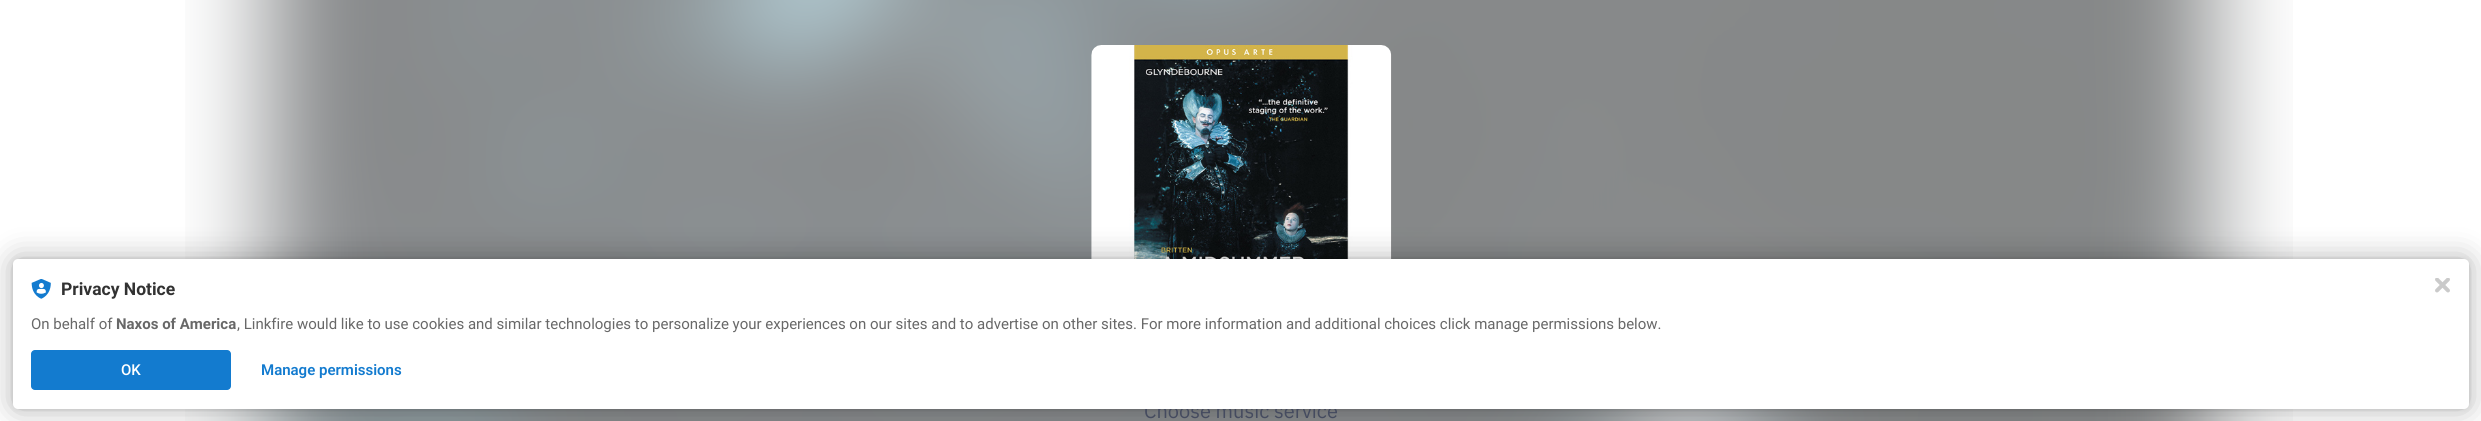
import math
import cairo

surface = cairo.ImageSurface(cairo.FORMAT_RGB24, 2481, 421)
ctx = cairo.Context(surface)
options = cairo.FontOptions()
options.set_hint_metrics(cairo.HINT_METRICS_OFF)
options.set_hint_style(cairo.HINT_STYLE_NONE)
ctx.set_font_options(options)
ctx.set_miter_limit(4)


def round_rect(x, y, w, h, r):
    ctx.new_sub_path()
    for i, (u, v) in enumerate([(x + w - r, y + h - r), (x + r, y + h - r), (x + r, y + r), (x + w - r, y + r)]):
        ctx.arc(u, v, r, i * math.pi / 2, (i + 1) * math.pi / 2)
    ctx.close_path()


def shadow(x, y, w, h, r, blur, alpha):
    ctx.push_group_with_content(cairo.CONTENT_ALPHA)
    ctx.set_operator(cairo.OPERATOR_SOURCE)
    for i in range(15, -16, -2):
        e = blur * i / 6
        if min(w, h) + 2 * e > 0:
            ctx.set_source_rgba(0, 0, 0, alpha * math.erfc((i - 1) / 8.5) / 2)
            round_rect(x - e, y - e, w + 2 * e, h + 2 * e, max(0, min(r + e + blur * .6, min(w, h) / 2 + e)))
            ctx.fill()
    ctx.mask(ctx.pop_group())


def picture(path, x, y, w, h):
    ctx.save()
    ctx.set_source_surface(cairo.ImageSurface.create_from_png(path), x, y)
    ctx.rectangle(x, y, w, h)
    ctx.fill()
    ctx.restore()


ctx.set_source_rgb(1, 1, 1)
ctx.paint()
picture("img1.png", 185, 0, 2108, 421)
picture("img4.png", 1091, 45, 301, 214)
ctx.set_source_rgb(0, 0, 0)
shadow(13, 259, 2456, 150, 5, 2.5, 0.12)
shadow(13, 259, 2456, 150, 5, 15, 0.3)
ctx.select_font_face("IBM Plex Sans")
ctx.set_font_size(20)
ctx.set_source_rgb(0.271, 0.294, 0.373)
ctx.move_to(1144, 418)
ctx.show_text("Choose music service")
ctx.set_source_rgb(1, 1, 1)
round_rect(13, 259, 2456, 150, 5)
ctx.fill()
picture("img2.png", 31, 279, 20, 20)
ctx.select_font_face("Roboto", cairo.FONT_SLANT_NORMAL, cairo.FONT_WEIGHT_BOLD)
ctx.set_font_size(17.5)
ctx.set_source_rgb(0.196, 0.196, 0.196)
ctx.move_to(61, 295)
ctx.show_text("Privacy Notice")
ctx.select_font_face("Roboto")
ctx.set_font_size(15)
ctx.set_source_rgb(0.408, 0.408, 0.408)
ctx.move_to(31, 329)
ctx.show_text("On behalf of")
ctx.select_font_face("Roboto", cairo.FONT_SLANT_NORMAL, cairo.FONT_WEIGHT_BOLD)
ctx.move_to(116, 329)
ctx.show_text("Naxos of America")
ctx.select_font_face("Roboto")
ctx.move_to(237, 329)
ctx.show_text(", Linkfire would like to use cookies and similar technologies to personalize your experiences on our sites and to advertise on other sites. For more information and additional choices click manage permissions below.")
ctx.set_source_rgb(0.075, 0.482, 0.812)
round_rect(31, 350, 200, 40, 4)
ctx.fill()
ctx.select_font_face("Roboto Medium")
ctx.set_source_rgb(1, 1, 1)
ctx.move_to(121, 375)
ctx.show_text("OK")
ctx.select_font_face("Roboto SemiBold")
ctx.set_source_rgb(0.075, 0.482, 0.812)
ctx.move_to(261, 375)
ctx.show_text("Manage permissions")
picture("img3.png", 2435, 278, 15, 15)
surface.write_to_png("page.png")
